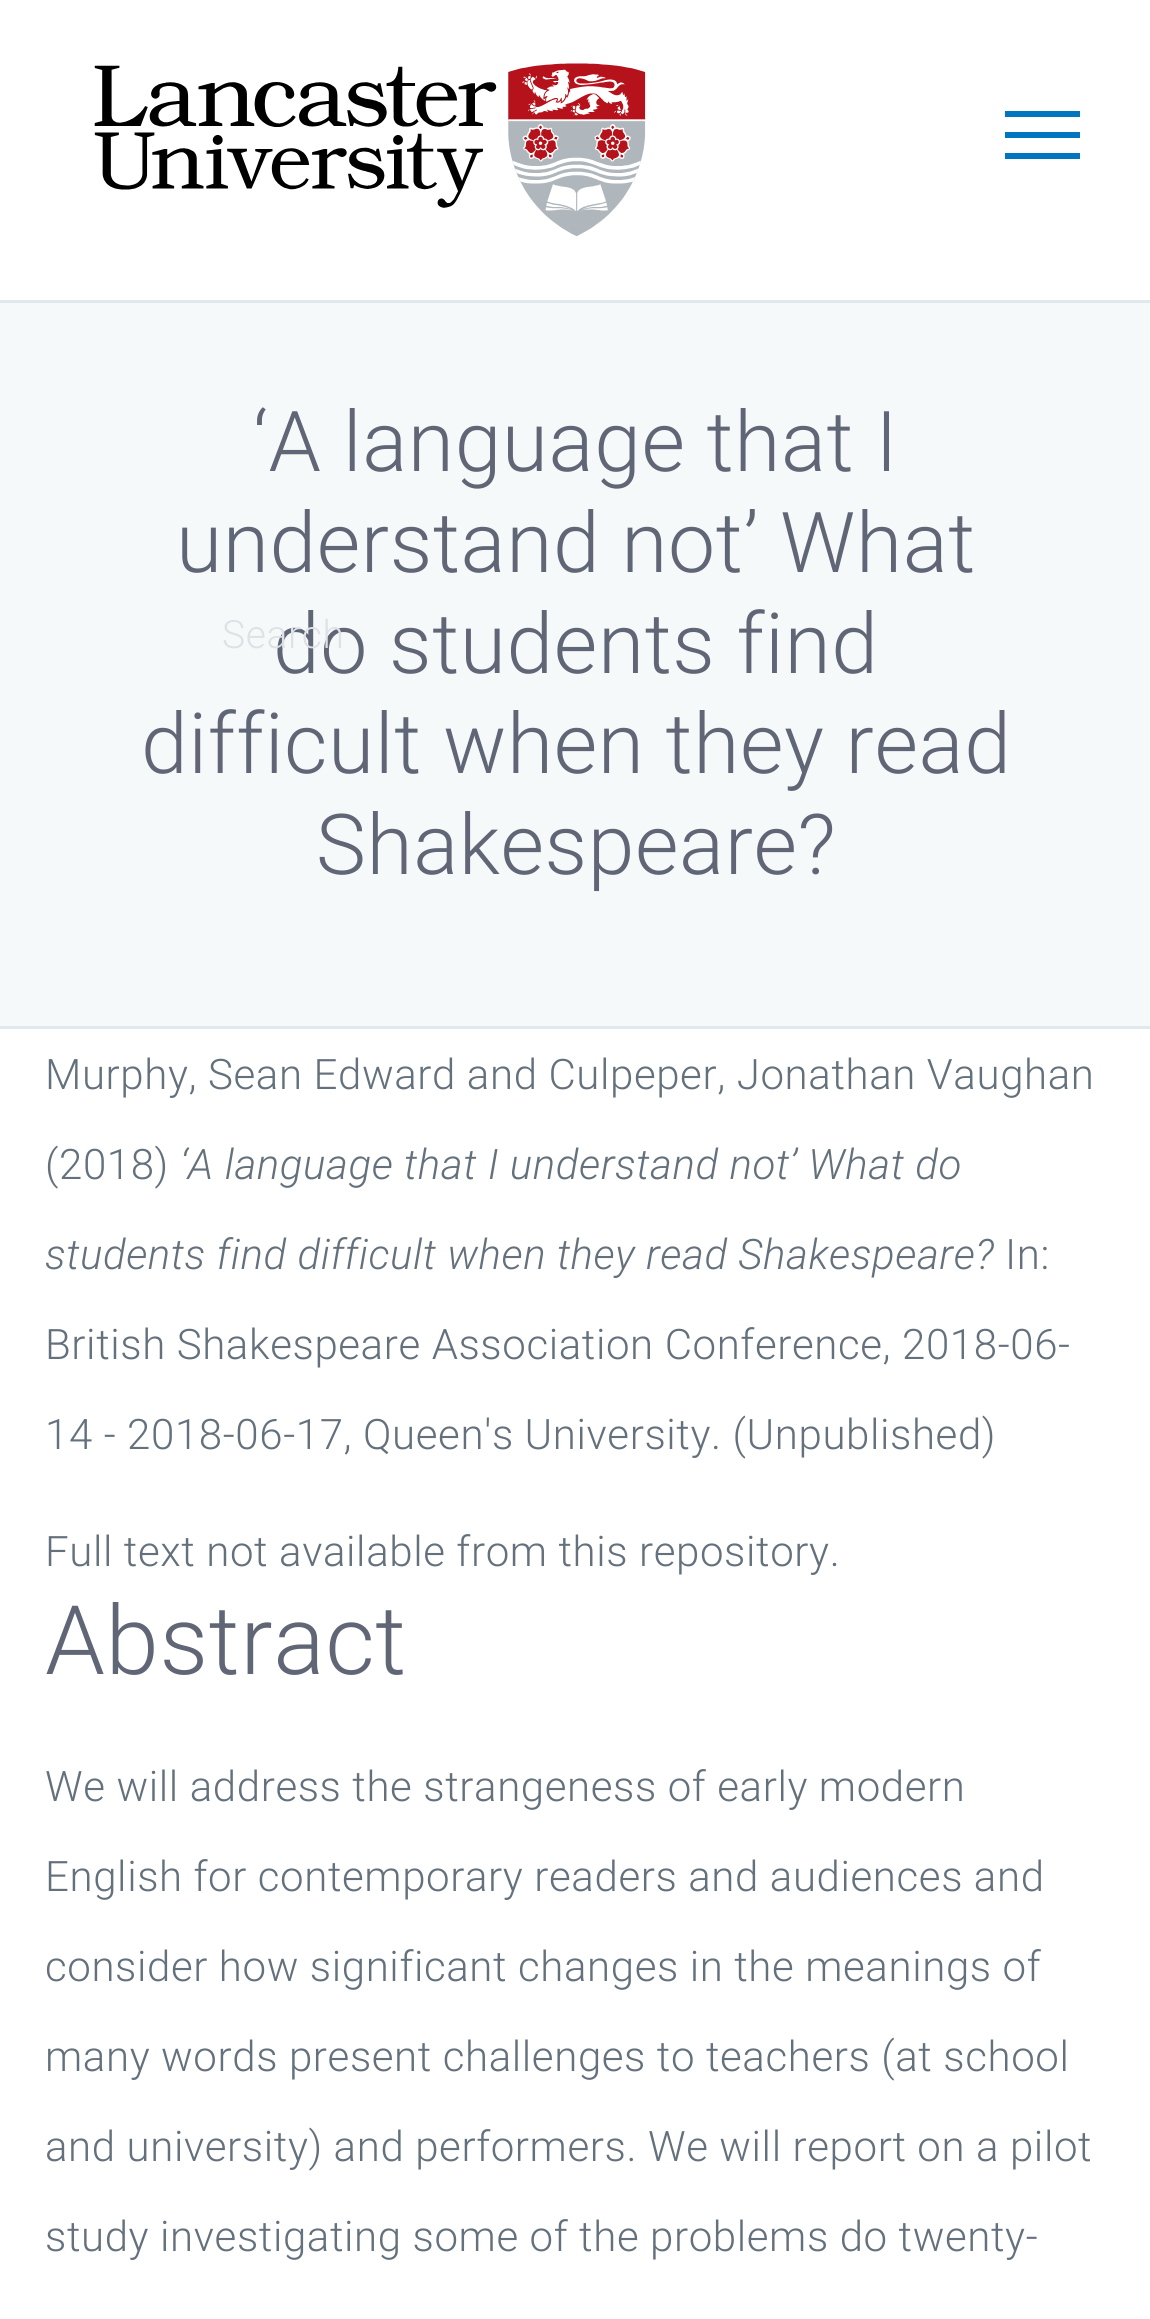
import math
import cairo

surface = cairo.ImageSurface(cairo.FORMAT_RGB24, 1150, 2319)
ctx = cairo.Context(surface)
options = cairo.FontOptions()
options.set_hint_metrics(cairo.HINT_METRICS_OFF)
options.set_hint_style(cairo.HINT_STYLE_NONE)
ctx.set_font_options(options)
ctx.set_miter_limit(4)


def spaced_text(x, y, s, letter, word):
    ctx.move_to(x, y)
    for ch in s:
        ctx.show_text(ch)
        ctx.rel_move_to(letter + word * (ch == ' '), 0)


def picture(path, x, y, w, h):
    ctx.save()
    ctx.set_source_surface(cairo.ImageSurface.create_from_png(path), x, y)
    ctx.rectangle(x, y, w, h)
    ctx.fill()
    ctx.restore()


ctx.set_source_rgb(1, 1, 1)
ctx.paint()
ctx.set_source_rgb(0.961, 0.973, 0.98)
ctx.rectangle(0, 303, 1150, 723)
ctx.fill()
ctx.set_source_rgb(0.882, 0.91, 0.933)
ctx.rectangle(0, 300, 1150, 3)
ctx.fill()
ctx.rectangle(0, 1026, 1150, 3)
ctx.fill()
ctx.select_font_face("Roboto Light")
ctx.set_font_size(84)
ctx.set_source_rgb(0.376, 0.4, 0.463)
spaced_text(253, 471, "‘A language that I", 0.6, 0)
spaced_text(176, 572, "understand not’ What", 0.6, 0)
spaced_text(273, 673, "do students find", 0.6, 0)
spaced_text(141, 773, "difficult when they read", 0.6, 0)
spaced_text(316, 874, "Shakespeare?", 0.6, 0)
ctx.set_font_size(42)
ctx.set_source_rgb(0.392, 0.443, 0.486)
spaced_text(45, 1089, "Murphy, Sean Edward and Culpeper, Jonathan Vaughan", 0.6, 0)
spaced_text(45, 1179, "(2018)", 0.6, 0)
ctx.select_font_face("Roboto Light", cairo.FONT_SLANT_ITALIC)
spaced_text(180, 1179, "‘A language that I understand not’ What do", 0.6, 0)
spaced_text(45, 1269, "students find difficult when they read Shakespeare?", 0.6, 0)
ctx.select_font_face("Roboto Light")
spaced_text(1005, 1269, "In:", 0.6, 0)
spaced_text(45, 1359, "British Shakespeare Association Conference, 2018-06-", 0.6, 0)
spaced_text(45, 1449, "14 - 2018-06-17, Queen's University. (Unpublished)", 0.6, 0)
spaced_text(45, 1566, "Full text not available from this repository.", 0.6, 0)
ctx.set_font_size(96)
ctx.set_source_rgb(0.376, 0.4, 0.463)
spaced_text(45, 1674, "Abstract", 0.6, 0)
ctx.set_font_size(42)
ctx.set_source_rgb(0.392, 0.443, 0.486)
spaced_text(45, 1801, "We will address the strangeness of early modern", 0.6, 0)
spaced_text(45, 1891, "English for contemporary readers and audiences and", 0.6, 0)
spaced_text(45, 1981, "consider how significant changes in the meanings of", 0.6, 0)
spaced_text(45, 2071, "many words present challenges to teachers (at school", 0.6, 0)
spaced_text(45, 2161, "and university) and performers. We will report on a pilot", 0.6, 0)
spaced_text(45, 2251, "study investigating some of the problems do twenty-", 0.6, 0)
picture("img1.png", 94, 63, 552, 174)
ctx.set_source_rgb(0, 0.463, 0.757)
ctx.rectangle(1005, 132, 75, 6)
ctx.fill()
ctx.rectangle(1005, 111, 75, 6)
ctx.fill()
ctx.rectangle(1005, 153, 75, 6)
ctx.fill()
ctx.set_font_size(39)
ctx.set_source_rgb(0.871, 0.882, 0.898)
spaced_text(222, 648, "Search", 0.6, 0)
surface.write_to_png("page.png")
